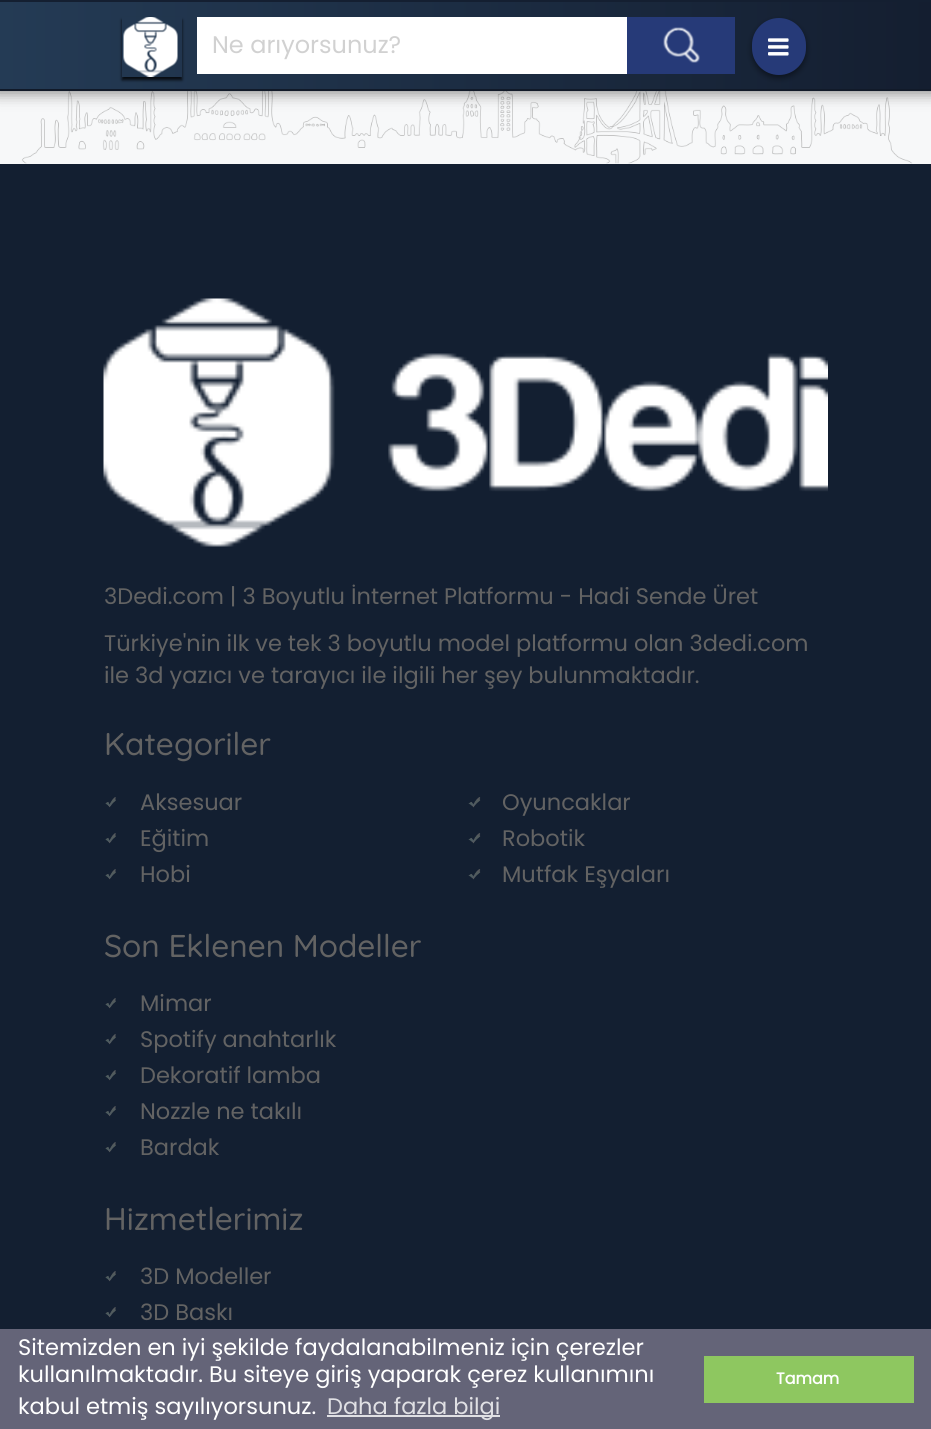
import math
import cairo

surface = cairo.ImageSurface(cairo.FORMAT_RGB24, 931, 1429)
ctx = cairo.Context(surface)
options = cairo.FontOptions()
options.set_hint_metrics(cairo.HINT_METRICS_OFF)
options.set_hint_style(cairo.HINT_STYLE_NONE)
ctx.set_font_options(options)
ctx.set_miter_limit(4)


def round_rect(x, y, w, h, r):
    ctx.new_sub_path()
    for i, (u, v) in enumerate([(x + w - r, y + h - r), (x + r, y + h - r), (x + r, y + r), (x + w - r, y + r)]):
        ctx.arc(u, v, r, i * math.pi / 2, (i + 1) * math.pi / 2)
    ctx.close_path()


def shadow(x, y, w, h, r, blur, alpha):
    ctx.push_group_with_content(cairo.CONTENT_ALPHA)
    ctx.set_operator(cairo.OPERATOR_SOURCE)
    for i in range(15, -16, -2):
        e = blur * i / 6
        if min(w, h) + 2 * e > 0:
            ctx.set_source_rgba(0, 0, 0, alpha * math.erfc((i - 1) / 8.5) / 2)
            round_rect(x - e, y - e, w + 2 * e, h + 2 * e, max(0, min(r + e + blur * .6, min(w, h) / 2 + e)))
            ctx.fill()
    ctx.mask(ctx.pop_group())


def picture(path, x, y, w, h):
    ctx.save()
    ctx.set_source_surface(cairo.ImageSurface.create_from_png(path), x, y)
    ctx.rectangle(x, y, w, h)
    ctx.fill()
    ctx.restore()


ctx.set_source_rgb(0.898, 0.914, 0.925)
ctx.paint()
picture("img4.png", 21, 91, 892, 73)
gradient = cairo.LinearGradient(466, 164, 466, -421)
gradient.add_color_stop_rgba(0, 1, 1, 1, 0.68)
gradient.add_color_stop_rgba(1, 1, 1, 1, 0.8)
ctx.set_source(gradient)
ctx.rectangle(0, 91, 931, 73)
ctx.fill()
ctx.set_source_rgb(0, 0, 0)
shadow(-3, -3, 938, 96, 0, 7.5, 0.47)
gradient = cairo.LinearGradient(0, 45, 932, 45)
gradient.add_color_stop_rgba(0, 0.141, 0.231, 0.333, 1)
gradient.add_color_stop_rgba(1, 0.078, 0.118, 0.188, 1)
ctx.set_source(gradient)
ctx.rectangle(0, 2, 931, 87)
ctx.fill()
ctx.set_source_rgb(0.082, 0.122, 0.192)
ctx.rectangle(0, 0, 931, 2)
ctx.fill()
ctx.set_source_rgb(0.067, 0.102, 0.161)
ctx.rectangle(0, 89, 931, 2)
ctx.fill()
ctx.save()
ctx.set_fill_rule(cairo.FILL_RULE_EVEN_ODD)
ctx.new_path()
ctx.move_to(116, 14)
ctx.line_to(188, 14)
ctx.line_to(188, 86)
ctx.line_to(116, 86)
ctx.close_path()
ctx.move_to(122, 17)
ctx.line_to(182, 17)
ctx.line_to(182, 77)
ctx.line_to(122, 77)
ctx.close_path()
ctx.clip()
ctx.set_source_rgb(0, 0, 0)
shadow(122, 20, 60, 60, 0, 1.5, 0.8)
ctx.restore()
picture("img1.png", 123, 17, 55, 60)
ctx.set_source_rgb(1, 1, 1)
ctx.rectangle(197, 17, 430, 57)
ctx.fill()
ctx.select_font_face("Poppins")
ctx.set_font_size(24)
ctx.set_source_rgb(0.82, 0.82, 0.82)
ctx.move_to(212, 53)
ctx.show_text("Ne arıyorsunuz?")
ctx.set_source_rgb(0.149, 0.227, 0.471)
ctx.rectangle(627, 17, 108, 57)
ctx.fill()
picture("img2.png", 663, 27, 37, 36)
ctx.set_source_rgb(0, 0, 0)
shadow(752, 21, 54, 57, 27, 3, 0.45)
ctx.set_source_rgb(0.149, 0.227, 0.471)
round_rect(752, 18, 54, 57, 27)
ctx.fill()
picture("img3.png", 768, 38, 21, 18)
ctx.set_source_rgb(0.078, 0.122, 0.192)
ctx.rectangle(0, 164, 931, 1165)
ctx.fill()
picture("img5.png", 103, 298, 725, 249)
ctx.set_font_size(22.5)
ctx.set_source_rgb(0.388, 0.388, 0.388)
ctx.move_to(104, 604)
ctx.show_text("3Dedi.com | 3 Boyutlu İnternet Platformu - Hadi Sende Üret")
ctx.move_to(104, 651)
ctx.show_text("Türkiye'nin ilk ve tek 3 boyutlu model platformu olan 3dedi.com")
ctx.move_to(104, 683)
ctx.show_text("ile 3d yazıcı ve tarayıcı ile ilgili her şey bulunmaktadır.")
ctx.select_font_face("Quicksand Medium")
ctx.set_font_size(31.5)
ctx.move_to(104, 755)
ctx.show_text("Kategoriler")
picture("img6.png", 105, 797, 11, 11)
ctx.select_font_face("Poppins")
ctx.set_font_size(22.5)
ctx.move_to(140, 810)
ctx.show_text("Aksesuar")
picture("img7.png", 468, 797, 13, 11)
ctx.move_to(502, 810)
ctx.show_text("Oyuncaklar")
picture("img6.png", 105, 833, 11, 11)
ctx.move_to(140, 846)
ctx.show_text("Eğitim")
picture("img7.png", 468, 833, 13, 11)
ctx.move_to(502, 846)
ctx.show_text("Robotik")
picture("img6.png", 105, 869, 11, 11)
ctx.move_to(140, 882)
ctx.show_text("Hobi")
picture("img7.png", 468, 869, 13, 11)
ctx.move_to(502, 882)
ctx.show_text("Mutfak Eşyaları")
ctx.select_font_face("Quicksand Medium")
ctx.set_font_size(31.5)
ctx.move_to(104, 957)
ctx.show_text("Son Eklenen Modeller")
picture("img8.png", 105, 998, 11, 11)
ctx.select_font_face("Poppins")
ctx.set_font_size(22.5)
ctx.move_to(140, 1011)
ctx.show_text("Mimar")
picture("img6.png", 105, 1034, 11, 11)
ctx.move_to(140, 1047)
ctx.show_text("Spotify anahtarlık")
picture("img6.png", 105, 1070, 11, 11)
ctx.move_to(140, 1083)
ctx.show_text("Dekoratif lamba")
picture("img6.png", 105, 1106, 11, 11)
ctx.move_to(140, 1119)
ctx.show_text("Nozzle ne takılı")
picture("img6.png", 105, 1142, 11, 11)
ctx.move_to(140, 1155)
ctx.show_text("Bardak")
ctx.select_font_face("Quicksand Medium")
ctx.set_font_size(31.5)
ctx.move_to(104, 1230)
ctx.show_text("Hizmetlerimiz")
picture("img6.png", 105, 1271, 11, 11)
ctx.select_font_face("Poppins")
ctx.set_font_size(22.5)
ctx.move_to(140, 1284)
ctx.show_text("3D Modeller")
picture("img6.png", 105, 1307, 11, 11)
ctx.move_to(140, 1320)
ctx.show_text("3D Baskı")
ctx.set_source_rgb(0.392, 0.392, 0.471)
ctx.rectangle(0, 1329, 931, 100)
ctx.fill()
ctx.set_source_rgb(1, 1, 1)
ctx.move_to(18, 1355)
ctx.show_text("Sitemizden en iyi şekilde faydalanabilmeniz için çerezler")
ctx.move_to(18, 1382)
ctx.show_text("kullanılmaktadır. Bu siteye giriş yaparak çerez kullanımını")
ctx.move_to(18, 1414)
ctx.show_text("kabul etmiş sayılıyorsunuz.")
ctx.set_source_rgb(0.878, 0.878, 0.894)
ctx.rectangle(327, 1415, 173, 2)
ctx.fill()
ctx.move_to(327, 1414)
ctx.show_text("Daha fazla bilgi")
ctx.set_source_rgb(0.557, 0.78, 0.376)
ctx.rectangle(704, 1356, 210, 47)
ctx.fill()
ctx.select_font_face("Poppins", cairo.FONT_SLANT_NORMAL, cairo.FONT_WEIGHT_BOLD)
ctx.set_font_size(16)
ctx.set_source_rgb(1, 1, 1)
ctx.move_to(776, 1384)
ctx.show_text("Tamam")
surface.write_to_png("page.png")
